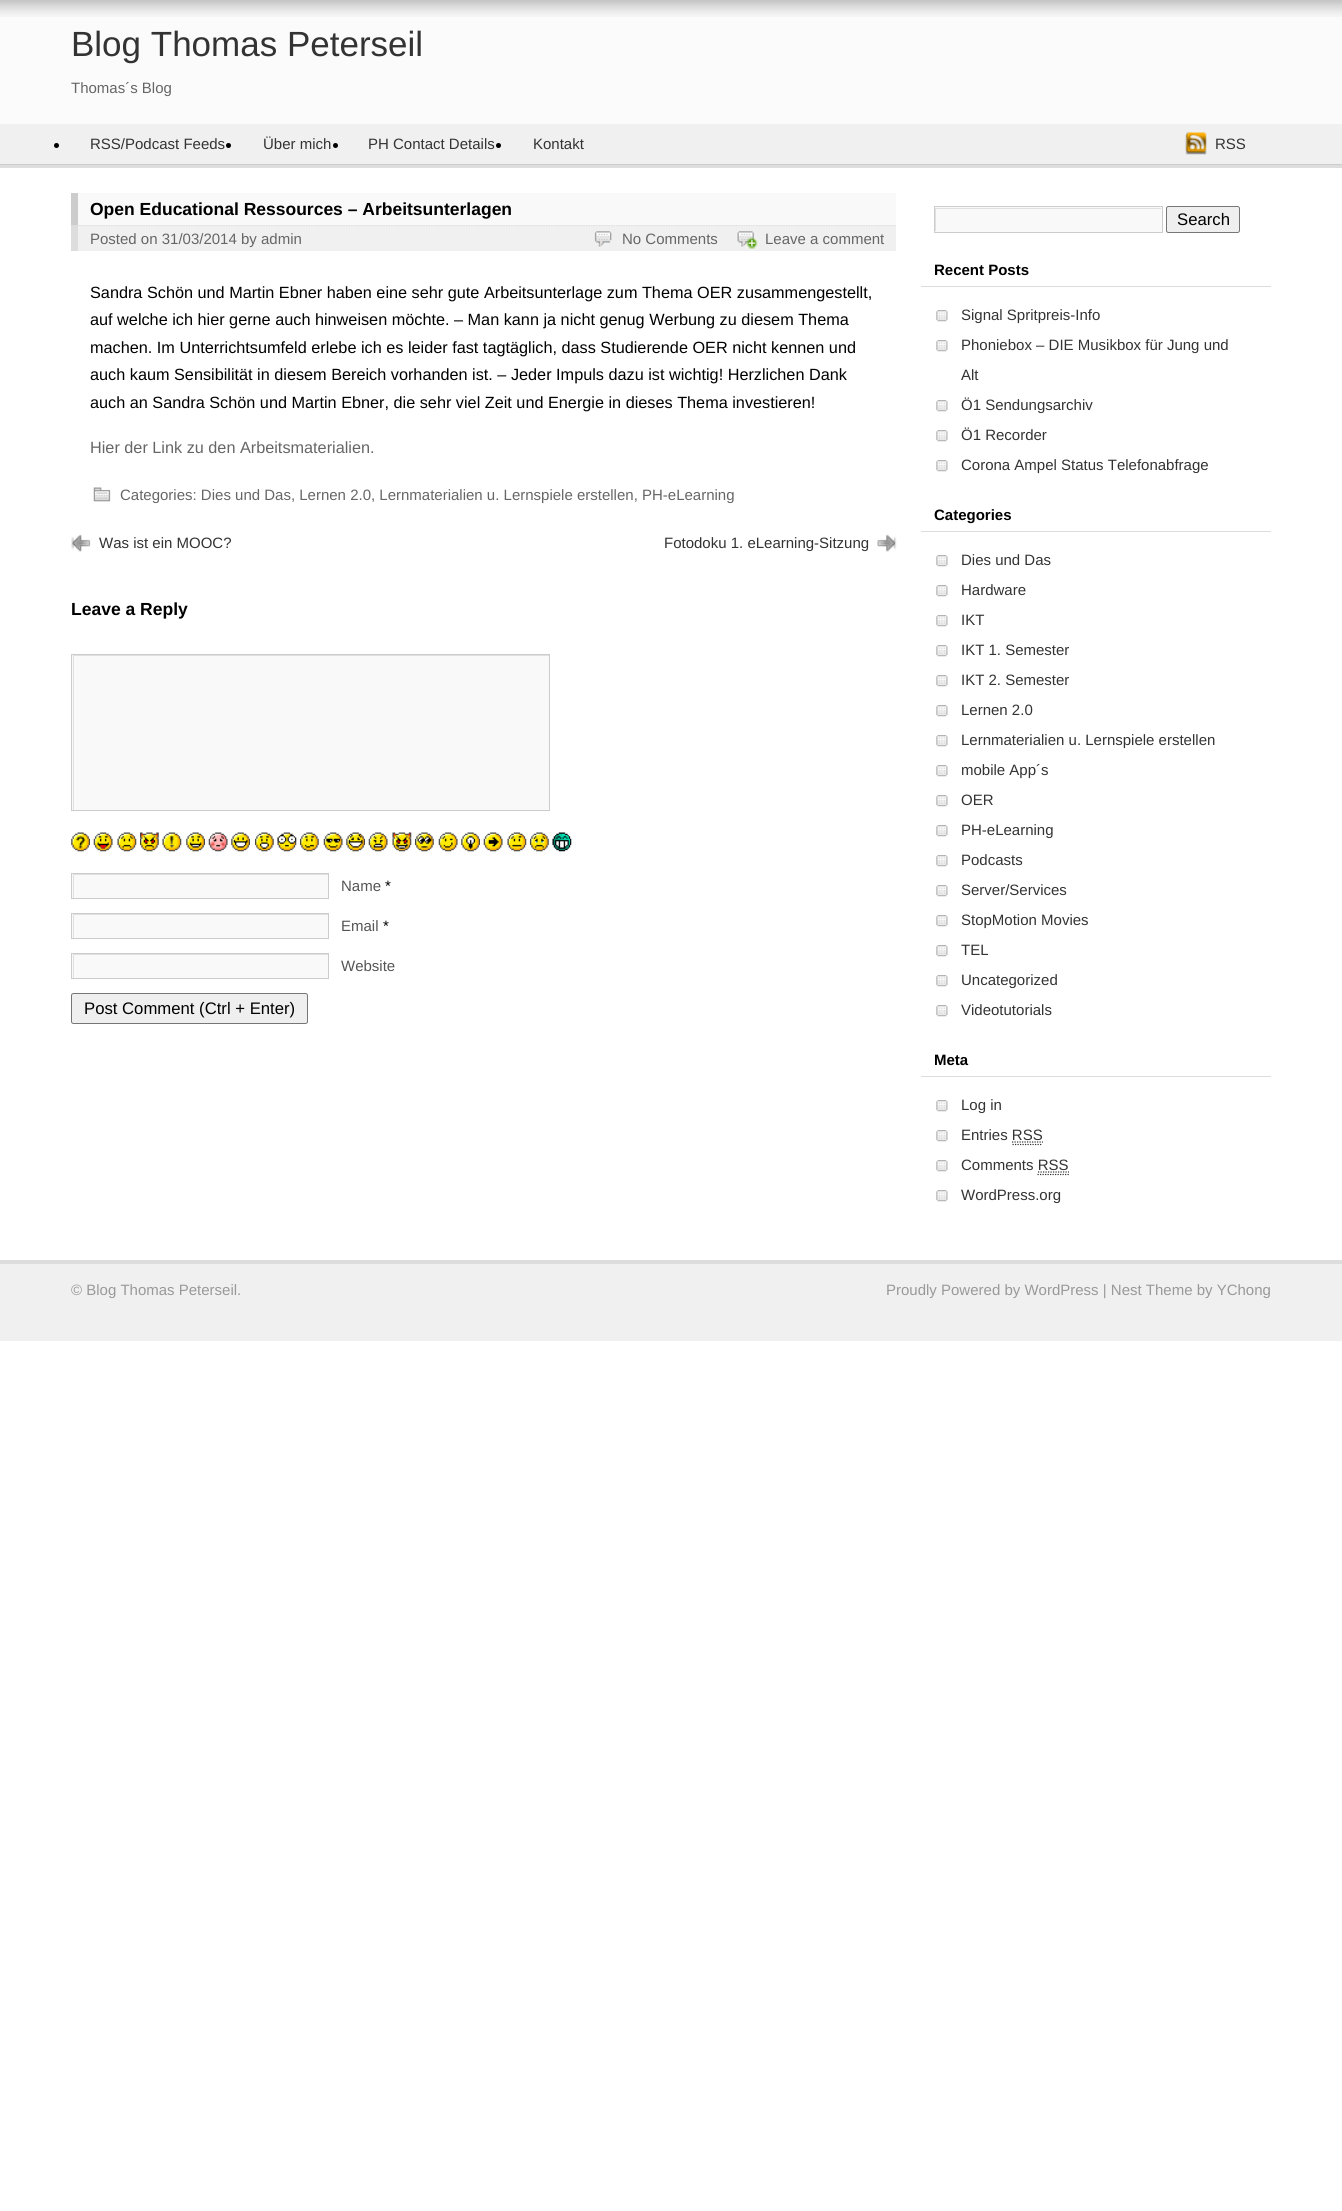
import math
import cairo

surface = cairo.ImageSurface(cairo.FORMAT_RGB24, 1342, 2211)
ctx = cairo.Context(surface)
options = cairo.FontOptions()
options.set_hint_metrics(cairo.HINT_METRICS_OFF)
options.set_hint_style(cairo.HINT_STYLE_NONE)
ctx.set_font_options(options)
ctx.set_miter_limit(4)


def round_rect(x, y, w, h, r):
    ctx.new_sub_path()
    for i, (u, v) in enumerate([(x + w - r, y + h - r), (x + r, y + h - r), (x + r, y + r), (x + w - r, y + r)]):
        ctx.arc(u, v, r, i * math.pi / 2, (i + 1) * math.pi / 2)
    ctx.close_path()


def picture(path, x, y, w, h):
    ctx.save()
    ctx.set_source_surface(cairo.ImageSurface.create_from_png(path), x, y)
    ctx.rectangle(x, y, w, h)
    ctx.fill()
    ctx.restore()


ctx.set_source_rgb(1, 1, 1)
ctx.paint()
ctx.set_source_rgb(0.984, 0.984, 0.984)
ctx.rectangle(0, 0, 1342, 124)
ctx.fill()
picture("img1.png", 0, 0, 1342, 17)
ctx.select_font_face("Liberation Sans")
ctx.set_font_size(35)
ctx.set_source_rgb(0.2, 0.2, 0.2)
ctx.move_to(71, 56)
ctx.show_text("Blog Thomas Peterseil")
ctx.set_font_size(15)
ctx.set_source_rgb(0.4, 0.4, 0.4)
ctx.move_to(71, 93)
ctx.show_text("Thomas´s Blog")
ctx.set_source_rgb(0.941, 0.941, 0.941)
ctx.rectangle(0, 124, 1342, 40)
ctx.fill()
ctx.set_source_rgb(0.8, 0.8, 0.8)
ctx.rectangle(0, 164, 1342, 1)
ctx.fill()
ctx.set_source_rgb(0, 0, 0)
ctx.arc(56.5, 145.5, 2.5, 0, 2 * math.pi)
ctx.fill()
ctx.set_source_rgb(0.2, 0.2, 0.2)
ctx.move_to(90, 149)
ctx.show_text("RSS/Podcast Feeds")
ctx.set_source_rgb(0, 0, 0)
ctx.new_path()
ctx.arc(228.5, 145.5, 2.5, 0, 2 * math.pi)
ctx.fill()
ctx.set_source_rgb(0.2, 0.2, 0.2)
ctx.move_to(263, 149)
ctx.show_text("Über mich")
ctx.set_source_rgb(0, 0, 0)
ctx.new_path()
ctx.arc(335.5, 145.5, 2.5, 0, 2 * math.pi)
ctx.fill()
ctx.set_source_rgb(0.2, 0.2, 0.2)
ctx.move_to(368, 149)
ctx.show_text("PH Contact Details")
ctx.set_source_rgb(0, 0, 0)
ctx.new_path()
ctx.arc(498.5, 145.5, 2.5, 0, 2 * math.pi)
ctx.fill()
ctx.set_source_rgb(0.2, 0.2, 0.2)
ctx.move_to(533, 149)
ctx.show_text("Kontakt")
picture("img2.png", 1185, 132, 22, 23)
ctx.move_to(1215, 149)
ctx.show_text("RSS")
ctx.set_source_rgb(0.867, 0.867, 0.867)
ctx.rectangle(0, 165, 1342, 3)
ctx.fill()
ctx.set_source_rgb(0.941, 0.941, 0.941)
ctx.rectangle(78, 225, 818, 26)
ctx.fill()
ctx.new_path()
ctx.move_to(71, 225.5)
ctx.line_to(896, 225.5)
ctx.set_source_rgb(0.867, 0.867, 0.867)
ctx.set_line_width(1.2)
ctx.set_dash([1.25, 1.25])
ctx.stroke()
ctx.set_source_rgb(0.976, 0.976, 0.976)
ctx.rectangle(78, 193, 818, 32)
ctx.fill()
ctx.set_source_rgb(0.8, 0.8, 0.8)
ctx.rectangle(71, 193, 7, 32)
ctx.fill()
ctx.select_font_face("Liberation Sans", cairo.FONT_SLANT_NORMAL, cairo.FONT_WEIGHT_BOLD)
ctx.set_font_size(17.5)
ctx.set_source_rgb(0, 0, 0)
ctx.move_to(90, 215)
ctx.show_text("Open Educational Ressources – Arbeitsunterlagen")
ctx.set_source_rgb(0.867, 0.867, 0.867)
ctx.rectangle(71, 225, 7, 26)
ctx.fill()
ctx.select_font_face("Liberation Sans")
ctx.set_font_size(15)
ctx.set_source_rgb(0.4, 0.4, 0.4)
ctx.move_to(90, 244)
ctx.show_text("Posted on 31/03/2014 by admin")
picture("img3.png", 594, 231, 18, 16)
ctx.move_to(622, 244)
ctx.show_text("No Comments")
picture("img4.png", 737, 231, 21, 18)
ctx.move_to(765, 244)
ctx.show_text("Leave a comment")
ctx.set_font_size(16.25)
ctx.set_source_rgb(0, 0, 0)
ctx.move_to(90, 298)
ctx.show_text("Sandra Schön und Martin Ebner haben eine sehr gute Arbeitsunterlage zum Thema OER zusammengestellt,")
ctx.move_to(90, 325)
ctx.show_text("auf welche ich hier gerne auch hinweisen möchte. – Man kann ja nicht genug Werbung zu diesem Thema")
ctx.move_to(90, 353)
ctx.show_text("machen. Im Unterrichtsumfeld erlebe ich es leider fast tagtäglich, dass Studierende OER nicht kennen und")
ctx.move_to(90, 380)
ctx.show_text("auch kaum Sensibilität in diesem Bereich vorhanden ist. – Jeder Impuls dazu ist wichtig! Herzlichen Dank")
ctx.move_to(90, 408)
ctx.show_text("auch an Sandra Schön und Martin Ebner, die sehr viel Zeit und Energie in dieses Thema investieren!")
ctx.set_source_rgb(0.4, 0.4, 0.4)
ctx.move_to(90, 453)
ctx.show_text("Hier der Link zu den Arbeitsmaterialien.")
picture("img5.png", 93, 487, 18, 15)
ctx.set_font_size(15)
ctx.move_to(120, 500)
ctx.show_text("Categories: Dies und Das, Lernen 2.0, Lernmaterialien u. Lernspiele erstellen, PH-eLearning")
picture("img6.png", 71, 534, 20, 18)
ctx.set_source_rgb(0.2, 0.2, 0.2)
ctx.move_to(99, 548)
ctx.show_text("Was ist ein MOOC?")
picture("img7.png", 877, 534, 20, 18)
ctx.move_to(664, 548)
ctx.show_text("Fotodoku 1. eLearning-Sitzung")
ctx.select_font_face("Liberation Sans", cairo.FONT_SLANT_NORMAL, cairo.FONT_WEIGHT_BOLD)
ctx.set_font_size(17.5)
ctx.set_source_rgb(0, 0, 0)
ctx.move_to(71, 615)
ctx.show_text("Leave a Reply")
ctx.set_source_rgb(0.976, 0.976, 0.976)
ctx.rectangle(72, 655, 477, 155)
ctx.fill()
ctx.save()
ctx.rectangle(73, 655, 476, 155)
ctx.clip()
ctx.set_source_rgb(0.878, 0.878, 0.878)
ctx.set_fill_rule(cairo.FILL_RULE_EVEN_ODD)
ctx.new_path()
ctx.move_to(-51, 531)
ctx.line_to(672, 531)
ctx.line_to(672, 934)
ctx.line_to(-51, 934)
ctx.close_path()
ctx.move_to(74, 656)
ctx.line_to(550, 656)
ctx.line_to(550, 811)
ctx.line_to(74, 811)
ctx.close_path()
ctx.fill()
ctx.restore()
ctx.rectangle(71.5, 654.5, 478, 156)
ctx.set_source_rgb(0.8, 0.8, 0.8)
ctx.set_line_width(1)
ctx.set_dash([])
ctx.stroke()
picture("img8.png", 71, 832, 19, 20)
picture("img9.png", 93, 832, 20, 20)
picture("img10.png", 117, 832, 20, 20)
picture("img11.png", 140, 832, 19, 20)
picture("img12.png", 162, 832, 20, 20)
picture("img13.png", 186, 832, 19, 20)
picture("img14.png", 208, 832, 20, 20)
picture("img15.png", 231, 832, 19, 20)
picture("img16.png", 255, 832, 19, 20)
picture("img17.png", 277, 832, 20, 20)
picture("img18.png", 300, 832, 19, 20)
picture("img19.png", 323, 832, 20, 20)
picture("img20.png", 346, 832, 19, 20)
picture("img21.png", 368, 832, 20, 20)
picture("img22.png", 392, 832, 20, 20)
picture("img23.png", 415, 832, 19, 20)
picture("img24.png", 438, 832, 20, 20)
picture("img25.png", 461, 832, 19, 20)
picture("img26.png", 483, 832, 20, 20)
picture("img27.png", 507, 832, 20, 20)
picture("img28.png", 530, 832, 19, 20)
picture("img29.png", 552, 832, 20, 20)
ctx.set_source_rgb(0.976, 0.976, 0.976)
ctx.rectangle(72, 874, 256, 24)
ctx.fill()
ctx.save()
ctx.rectangle(73, 874, 255, 24)
ctx.clip()
ctx.set_source_rgb(0.878, 0.878, 0.878)
ctx.set_fill_rule(cairo.FILL_RULE_EVEN_ODD)
ctx.new_path()
ctx.move_to(-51, 750)
ctx.line_to(451, 750)
ctx.line_to(451, 1021)
ctx.line_to(-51, 1021)
ctx.close_path()
ctx.move_to(74, 875)
ctx.line_to(329, 875)
ctx.line_to(329, 899)
ctx.line_to(74, 899)
ctx.close_path()
ctx.fill()
ctx.restore()
ctx.rectangle(71.5, 873.5, 257, 25)
ctx.set_source_rgb(0.8, 0.8, 0.8)
ctx.stroke()
ctx.select_font_face("Liberation Sans")
ctx.set_font_size(15)
ctx.set_source_rgb(0.333, 0.333, 0.333)
ctx.move_to(341, 891)
ctx.show_text("Name")
ctx.set_source_rgb(0, 0, 0)
ctx.move_to(385, 891)
ctx.show_text("*")
ctx.set_source_rgb(0.976, 0.976, 0.976)
ctx.rectangle(72, 914, 256, 24)
ctx.fill()
ctx.save()
ctx.rectangle(73, 914, 255, 24)
ctx.clip()
ctx.set_source_rgb(0.878, 0.878, 0.878)
ctx.set_fill_rule(cairo.FILL_RULE_EVEN_ODD)
ctx.new_path()
ctx.move_to(-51, 790)
ctx.line_to(451, 790)
ctx.line_to(451, 1061)
ctx.line_to(-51, 1061)
ctx.close_path()
ctx.move_to(74, 915)
ctx.line_to(329, 915)
ctx.line_to(329, 939)
ctx.line_to(74, 939)
ctx.close_path()
ctx.fill()
ctx.restore()
ctx.rectangle(71.5, 913.5, 257, 25)
ctx.set_source_rgb(0.8, 0.8, 0.8)
ctx.stroke()
ctx.set_source_rgb(0.333, 0.333, 0.333)
ctx.move_to(341, 931)
ctx.show_text("Email")
ctx.set_source_rgb(0, 0, 0)
ctx.move_to(383, 931)
ctx.show_text("*")
ctx.set_source_rgb(0.976, 0.976, 0.976)
ctx.rectangle(72, 954, 256, 24)
ctx.fill()
ctx.save()
ctx.rectangle(73, 954, 255, 24)
ctx.clip()
ctx.set_source_rgb(0.878, 0.878, 0.878)
ctx.set_fill_rule(cairo.FILL_RULE_EVEN_ODD)
ctx.new_path()
ctx.move_to(-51, 830)
ctx.line_to(451, 830)
ctx.line_to(451, 1101)
ctx.line_to(-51, 1101)
ctx.close_path()
ctx.move_to(74, 955)
ctx.line_to(329, 955)
ctx.line_to(329, 979)
ctx.line_to(74, 979)
ctx.close_path()
ctx.fill()
ctx.restore()
ctx.rectangle(71.5, 953.5, 257, 25)
ctx.set_source_rgb(0.8, 0.8, 0.8)
ctx.stroke()
ctx.set_source_rgb(0.333, 0.333, 0.333)
ctx.move_to(341, 971)
ctx.show_text("Website")
ctx.set_source_rgb(0.937, 0.937, 0.937)
round_rect(71.5, 993.5, 236, 30, 2)
ctx.fill_preserve()
ctx.set_source_rgb(0.463, 0.463, 0.463)
ctx.stroke()
ctx.set_font_size(16.7)
ctx.set_source_rgb(0, 0, 0)
ctx.move_to(84, 1014)
ctx.show_text("Post Comment (Ctrl + Enter)")
ctx.set_source_rgb(0.976, 0.976, 0.976)
ctx.rectangle(935, 207, 227, 25)
ctx.fill()
ctx.save()
ctx.rectangle(935, 208, 226, 23)
ctx.clip()
ctx.set_source_rgb(0.878, 0.878, 0.878)
ctx.set_fill_rule(cairo.FILL_RULE_EVEN_ODD)
ctx.new_path()
ctx.move_to(811, 84)
ctx.line_to(1285, 84)
ctx.line_to(1285, 355)
ctx.line_to(811, 355)
ctx.close_path()
ctx.move_to(936, 209)
ctx.line_to(1162, 209)
ctx.line_to(1162, 232)
ctx.line_to(936, 232)
ctx.close_path()
ctx.fill()
ctx.restore()
ctx.rectangle(934.5, 206.5, 228, 26)
ctx.set_source_rgb(0.8, 0.8, 0.8)
ctx.stroke()
ctx.set_source_rgb(0.937, 0.937, 0.937)
round_rect(1166.5, 206.5, 73, 26, 2)
ctx.fill_preserve()
ctx.set_source_rgb(0.463, 0.463, 0.463)
ctx.stroke()
ctx.set_source_rgb(0, 0, 0)
ctx.move_to(1177, 225)
ctx.show_text("Search")
ctx.set_source_rgb(0.867, 0.867, 0.867)
ctx.rectangle(921, 286, 350, 1)
ctx.fill()
ctx.select_font_face("Liberation Sans", cairo.FONT_SLANT_NORMAL, cairo.FONT_WEIGHT_BOLD)
ctx.set_font_size(15)
ctx.set_source_rgb(0, 0, 0)
ctx.move_to(934, 275)
ctx.show_text("Recent Posts")
picture("img30.png", 936, 310, 12, 12)
ctx.select_font_face("Liberation Sans")
ctx.set_source_rgb(0.2, 0.2, 0.2)
ctx.move_to(961, 320)
ctx.show_text("Signal Spritpreis-Info")
picture("img30.png", 936, 340, 12, 12)
ctx.move_to(961, 350)
ctx.show_text("Phoniebox – DIE Musikbox für Jung und")
ctx.move_to(961, 380)
ctx.show_text("Alt")
picture("img30.png", 936, 400, 12, 12)
ctx.move_to(961, 410)
ctx.show_text("Ö1 Sendungsarchiv")
picture("img30.png", 936, 430, 12, 12)
ctx.move_to(961, 440)
ctx.show_text("Ö1 Recorder")
picture("img30.png", 936, 460, 12, 12)
ctx.move_to(961, 470)
ctx.show_text("Corona Ampel Status Telefonabfrage")
ctx.set_source_rgb(0.867, 0.867, 0.867)
ctx.rectangle(921, 531, 350, 1)
ctx.fill()
ctx.select_font_face("Liberation Sans", cairo.FONT_SLANT_NORMAL, cairo.FONT_WEIGHT_BOLD)
ctx.set_source_rgb(0, 0, 0)
ctx.move_to(934, 520)
ctx.show_text("Categories")
picture("img30.png", 936, 555, 12, 12)
ctx.select_font_face("Liberation Sans")
ctx.set_source_rgb(0.2, 0.2, 0.2)
ctx.move_to(961, 565)
ctx.show_text("Dies und Das")
picture("img31.png", 936, 585, 12, 12)
ctx.move_to(961, 595)
ctx.show_text("Hardware")
picture("img30.png", 936, 615, 12, 12)
ctx.move_to(961, 625)
ctx.show_text("IKT")
picture("img30.png", 936, 645, 12, 12)
ctx.move_to(961, 655)
ctx.show_text("IKT 1. Semester")
picture("img30.png", 936, 675, 12, 12)
ctx.move_to(961, 685)
ctx.show_text("IKT 2. Semester")
picture("img30.png", 936, 705, 12, 12)
ctx.move_to(961, 715)
ctx.show_text("Lernen 2.0")
picture("img30.png", 936, 735, 12, 12)
ctx.move_to(961, 745)
ctx.show_text("Lernmaterialien u. Lernspiele erstellen")
picture("img30.png", 936, 765, 12, 12)
ctx.move_to(961, 775)
ctx.show_text("mobile App´s")
picture("img30.png", 936, 795, 12, 12)
ctx.move_to(961, 805)
ctx.show_text("OER")
picture("img30.png", 936, 825, 12, 12)
ctx.move_to(961, 835)
ctx.show_text("PH-eLearning")
picture("img30.png", 936, 855, 12, 12)
ctx.move_to(961, 865)
ctx.show_text("Podcasts")
picture("img30.png", 936, 885, 12, 12)
ctx.move_to(961, 895)
ctx.show_text("Server/Services")
picture("img30.png", 936, 915, 12, 12)
ctx.move_to(961, 925)
ctx.show_text("StopMotion Movies")
picture("img30.png", 936, 945, 12, 12)
ctx.move_to(961, 955)
ctx.show_text("TEL")
picture("img30.png", 936, 975, 12, 12)
ctx.move_to(961, 985)
ctx.show_text("Uncategorized")
picture("img30.png", 936, 1005, 12, 12)
ctx.move_to(961, 1015)
ctx.show_text("Videotutorials")
ctx.set_source_rgb(0.867, 0.867, 0.867)
ctx.rectangle(921, 1076, 350, 1)
ctx.fill()
ctx.select_font_face("Liberation Sans", cairo.FONT_SLANT_NORMAL, cairo.FONT_WEIGHT_BOLD)
ctx.set_source_rgb(0, 0, 0)
ctx.move_to(934, 1065)
ctx.show_text("Meta")
picture("img30.png", 936, 1100, 12, 12)
ctx.select_font_face("Liberation Sans")
ctx.set_source_rgb(0.2, 0.2, 0.2)
ctx.move_to(961, 1110)
ctx.show_text("Log in")
picture("img30.png", 936, 1130, 12, 12)
ctx.move_to(961, 1140)
ctx.show_text("Entries RSS")
ctx.new_path()
ctx.move_to(1012.5, 1144.5)
ctx.line_to(1042.5, 1144.5)
ctx.move_to(1012, 1142)
ctx.line_to(1043, 1142)
ctx.set_line_width(1.2)
ctx.set_dash([1.25, 1.25])
ctx.stroke()
picture("img30.png", 936, 1160, 12, 12)
ctx.move_to(961, 1170)
ctx.show_text("Comments RSS")
ctx.new_path()
ctx.move_to(1037.5, 1174.5)
ctx.line_to(1069, 1174.5)
ctx.move_to(1038, 1172)
ctx.line_to(1069, 1172)
ctx.stroke()
picture("img30.png", 936, 1190, 12, 12)
ctx.move_to(961, 1200)
ctx.show_text("WordPress.org")
ctx.set_source_rgb(0.941, 0.941, 0.941)
ctx.rectangle(0, 1264, 1342, 77)
ctx.fill()
ctx.set_source_rgb(0.867, 0.867, 0.867)
ctx.rectangle(0, 1260, 1342, 4)
ctx.fill()
ctx.set_source_rgb(0.6, 0.6, 0.6)
ctx.move_to(71, 1295)
ctx.show_text("© Blog Thomas Peterseil.")
ctx.move_to(886, 1295)
ctx.show_text("Proudly Powered by WordPress | Nest Theme by YChong")
surface.write_to_png("page.png")
